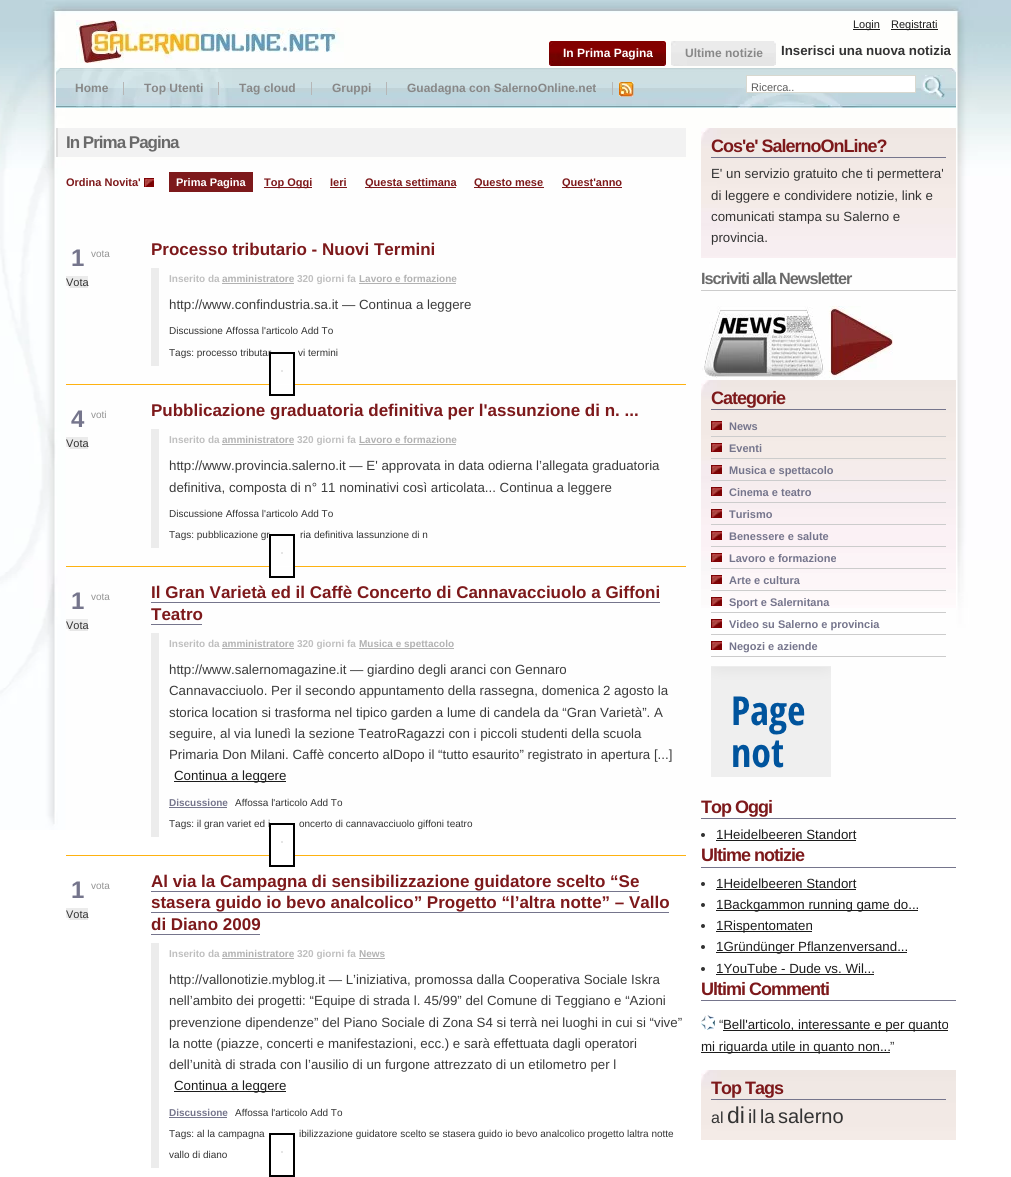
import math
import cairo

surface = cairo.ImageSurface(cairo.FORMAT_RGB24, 1011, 1177)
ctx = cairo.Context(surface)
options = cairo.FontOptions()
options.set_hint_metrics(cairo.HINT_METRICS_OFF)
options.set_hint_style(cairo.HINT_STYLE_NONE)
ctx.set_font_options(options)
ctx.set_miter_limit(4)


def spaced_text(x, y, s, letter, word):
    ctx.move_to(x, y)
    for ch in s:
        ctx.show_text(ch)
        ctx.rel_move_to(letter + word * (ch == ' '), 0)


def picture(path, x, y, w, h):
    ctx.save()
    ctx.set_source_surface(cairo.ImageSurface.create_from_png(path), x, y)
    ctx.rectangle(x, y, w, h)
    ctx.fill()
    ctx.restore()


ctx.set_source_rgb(1, 1, 1)
ctx.paint()
picture("img1.png", 0, 0, 1011, 830)
picture("img2.png", 76, 20, 268, 43)
ctx.set_source_rgb(0.11, 0.11, 0.11)
ctx.rectangle(853, 29, 27, 1)
ctx.fill()
ctx.select_font_face("Liberation Sans")
ctx.set_font_size(11)
ctx.move_to(853, 28)
ctx.show_text("Login")
ctx.rectangle(891, 29, 47, 1)
ctx.fill()
ctx.move_to(891, 28)
ctx.show_text("Registrati")
picture("img3.png", 549, 41, 113, 25)
picture("img4.png", 662, 41, 4, 25)
ctx.select_font_face("Liberation Sans", cairo.FONT_SLANT_NORMAL, cairo.FONT_WEIGHT_BOLD)
ctx.set_font_size(12)
ctx.set_source_rgb(1, 1, 1)
ctx.move_to(563, 57)
ctx.show_text("In Prima Pagina")
picture("img5.png", 671, 41, 103, 25)
picture("img6.png", 774, 41, 2, 25)
ctx.set_source_rgb(0.533, 0.533, 0.533)
ctx.move_to(685, 57)
ctx.show_text("Ultime notizie")
ctx.set_font_size(13.3)
ctx.set_source_rgb(0.2, 0.2, 0.2)
ctx.move_to(781, 55)
ctx.show_text("Inserisci una nuova notizia")
picture("img7.png", 56, 68, 670, 40)
ctx.set_source_rgb(0.714, 0.714, 0.714)
ctx.rectangle(123, 82, 1, 13)
ctx.fill()
ctx.set_font_size(12)
ctx.set_source_rgb(0.533, 0.533, 0.533)
ctx.move_to(75, 92)
ctx.show_text("Home")
ctx.set_source_rgb(0.714, 0.714, 0.714)
ctx.rectangle(218, 82, 1, 13)
ctx.fill()
ctx.set_source_rgb(0.533, 0.533, 0.533)
ctx.move_to(144, 92)
ctx.show_text("Top Utenti")
ctx.set_source_rgb(0.714, 0.714, 0.714)
ctx.rectangle(311, 82, 1, 13)
ctx.fill()
ctx.set_source_rgb(0.533, 0.533, 0.533)
ctx.move_to(239, 92)
ctx.show_text("Tag cloud")
ctx.set_source_rgb(0.714, 0.714, 0.714)
ctx.rectangle(386, 82, 1, 13)
ctx.fill()
ctx.set_source_rgb(0.533, 0.533, 0.533)
ctx.move_to(332, 92)
ctx.show_text("Gruppi")
ctx.set_source_rgb(0.714, 0.714, 0.714)
ctx.rectangle(612, 82, 1, 13)
ctx.fill()
ctx.set_source_rgb(0.533, 0.533, 0.533)
ctx.move_to(407, 92)
ctx.show_text("Guadagna con SalernoOnline.net")
picture("img8.png", 619, 82, 15, 15)
picture("img9.png", 726, 68, 230, 40)
ctx.set_source_rgb(1, 1, 1)
ctx.rectangle(746.5, 75.5, 169, 17)
ctx.fill_preserve()
ctx.set_source_rgb(0.847, 0.847, 0.812)
ctx.set_line_width(1)
ctx.stroke()
ctx.select_font_face("Liberation Sans")
ctx.set_font_size(11)
ctx.set_source_rgb(0.361, 0.361, 0.361)
ctx.move_to(751, 91)
ctx.show_text("Ricerca..")
picture("img10.png", 921, 75, 24, 25)
ctx.set_source_rgb(0.949, 0.949, 0.949)
ctx.rectangle(58, 128, 628, 29)
ctx.fill()
ctx.set_source_rgb(0.871, 0.871, 0.871)
ctx.rectangle(56, 128, 2, 29)
ctx.fill()
ctx.select_font_face("Liberation Sans", cairo.FONT_SLANT_NORMAL, cairo.FONT_WEIGHT_BOLD)
ctx.set_font_size(17)
ctx.set_source_rgb(0.416, 0.416, 0.416)
spaced_text(66, 148, "In Prima Pagina", -1, 0)
picture("img11.png", 144, 178, 10, 9)
ctx.set_font_size(11)
ctx.set_source_rgb(0.49, 0.098, 0.106)
ctx.move_to(66, 186)
ctx.show_text("Ordina Novita'")
ctx.rectangle(169, 172, 84, 20)
ctx.fill()
ctx.set_source_rgb(1, 1, 1)
ctx.move_to(176, 186)
ctx.show_text("Prima Pagina")
ctx.set_source_rgb(0.49, 0.098, 0.106)
ctx.rectangle(264, 187, 48, 1)
ctx.fill()
ctx.move_to(264, 186)
ctx.show_text("Top Oggi")
ctx.move_to(330, 186)
ctx.show_text("Ieri")
ctx.rectangle(330, 187, 17, 1)
ctx.fill()
ctx.rectangle(365, 187, 91, 1)
ctx.fill()
ctx.move_to(365, 186)
ctx.show_text("Questa settimana")
ctx.rectangle(474, 187, 70, 1)
ctx.fill()
ctx.move_to(474, 186)
ctx.show_text("Questo mese")
ctx.rectangle(562, 187, 60, 1)
ctx.fill()
ctx.move_to(562, 186)
ctx.show_text("Quest'anno")
ctx.set_source_rgb(0.996, 0.698, 0.067)
ctx.rectangle(66, 384, 620, 1)
ctx.fill()
ctx.set_font_size(24)
ctx.set_source_rgb(0.459, 0.459, 0.549)
ctx.move_to(71, 266)
ctx.show_text("1")
ctx.select_font_face("Liberation Sans")
ctx.set_font_size(10)
ctx.set_source_rgb(0.58, 0.58, 0.58)
ctx.move_to(91, 257)
ctx.show_text("vota")
picture("img12.png", 66, 276, 22, 12)
ctx.set_font_size(11)
ctx.set_source_rgb(0.2, 0.2, 0.2)
ctx.move_to(66, 286)
ctx.show_text("Vota")
ctx.select_font_face("Liberation Sans", cairo.FONT_SLANT_NORMAL, cairo.FONT_WEIGHT_BOLD)
ctx.set_font_size(17)
ctx.set_source_rgb(0.49, 0.098, 0.106)
ctx.move_to(151, 255)
ctx.show_text("Processo tributario - Nuovi Termini")
ctx.set_source_rgb(0.922, 0.922, 0.922)
ctx.rectangle(151, 268, 8, 98)
ctx.fill()
ctx.set_font_size(10)
ctx.set_source_rgb(0.749, 0.749, 0.749)
ctx.move_to(169, 282)
ctx.show_text("Inserito da")
ctx.set_source_rgb(0.698, 0.698, 0.698)
ctx.move_to(222, 282)
ctx.show_text("amministratore")
ctx.rectangle(222, 283, 72, 1)
ctx.fill()
ctx.set_source_rgb(0.749, 0.749, 0.749)
ctx.move_to(297, 282)
ctx.show_text("320 giorni fa")
ctx.set_source_rgb(0.698, 0.698, 0.698)
ctx.move_to(359, 282)
ctx.show_text("Lavoro e formazione")
ctx.rectangle(359, 283, 97, 1)
ctx.fill()
ctx.select_font_face("Liberation Sans")
ctx.set_font_size(13.3)
ctx.set_source_rgb(0.231, 0.231, 0.231)
ctx.move_to(169, 309)
ctx.show_text("http://www.confindustria.sa.it — Continua a leggere")
ctx.set_font_size(10)
ctx.set_source_rgb(0.2, 0.2, 0.2)
ctx.move_to(169, 334)
ctx.show_text("Discussione Affossa l'articolo Add To")
ctx.move_to(169, 356)
ctx.show_text("Tags: processo tributar")
ctx.set_source_rgb(1, 1, 1)
ctx.rectangle(271, 384, 22, 1)
ctx.fill()
ctx.rectangle(270, 353, 24, 42)
ctx.set_source_rgb(0, 0, 0)
ctx.set_line_width(2)
ctx.stroke()
ctx.set_source_rgb(0.898, 0.898, 0.898)
ctx.rectangle(281, 370, 2, 2)
ctx.fill()
ctx.set_source_rgb(0.2, 0.2, 0.2)
ctx.move_to(298, 356)
ctx.show_text("vi termini")
ctx.set_source_rgb(0.996, 0.698, 0.067)
ctx.rectangle(66, 566, 620, 1)
ctx.fill()
ctx.select_font_face("Liberation Sans", cairo.FONT_SLANT_NORMAL, cairo.FONT_WEIGHT_BOLD)
ctx.set_font_size(24)
ctx.set_source_rgb(0.459, 0.459, 0.549)
ctx.move_to(71, 427)
ctx.show_text("4")
ctx.select_font_face("Liberation Sans")
ctx.set_font_size(10)
ctx.set_source_rgb(0.58, 0.58, 0.58)
ctx.move_to(91, 418)
ctx.show_text("voti")
picture("img12.png", 66, 437, 22, 12)
ctx.set_font_size(11)
ctx.set_source_rgb(0.2, 0.2, 0.2)
ctx.move_to(66, 447)
ctx.show_text("Vota")
ctx.select_font_face("Liberation Sans", cairo.FONT_SLANT_NORMAL, cairo.FONT_WEIGHT_BOLD)
ctx.set_font_size(17)
ctx.set_source_rgb(0.49, 0.098, 0.106)
ctx.move_to(151, 416)
ctx.show_text("Pubblicazione graduatoria definitiva per l'assunzione di n. ...")
ctx.set_source_rgb(0.922, 0.922, 0.922)
ctx.rectangle(151, 429, 8, 119)
ctx.fill()
ctx.set_font_size(10)
ctx.set_source_rgb(0.749, 0.749, 0.749)
ctx.move_to(169, 443)
ctx.show_text("Inserito da")
ctx.set_source_rgb(0.698, 0.698, 0.698)
ctx.move_to(222, 443)
ctx.show_text("amministratore")
ctx.rectangle(222, 444, 72, 1)
ctx.fill()
ctx.set_source_rgb(0.749, 0.749, 0.749)
ctx.move_to(297, 443)
ctx.show_text("320 giorni fa")
ctx.set_source_rgb(0.698, 0.698, 0.698)
ctx.move_to(359, 443)
ctx.show_text("Lavoro e formazione")
ctx.rectangle(359, 444, 97, 1)
ctx.fill()
ctx.select_font_face("Liberation Sans")
ctx.set_font_size(13.3)
ctx.set_source_rgb(0.231, 0.231, 0.231)
ctx.move_to(169, 470)
ctx.show_text("http://www.provincia.salerno.it — E' approvata in data odierna l’allegata graduatoria")
ctx.move_to(169, 492)
ctx.show_text("definitiva, composta di n° 11 nominativi così articolata... Continua a leggere")
ctx.set_font_size(10)
ctx.set_source_rgb(0.2, 0.2, 0.2)
ctx.move_to(169, 517)
ctx.show_text("Discussione Affossa l'articolo Add To")
ctx.move_to(169, 538)
ctx.show_text("Tags: pubblicazione gr")
ctx.set_source_rgb(1, 1, 1)
ctx.rectangle(271, 566, 22, 1)
ctx.fill()
ctx.rectangle(270, 535, 24, 42)
ctx.set_source_rgb(0, 0, 0)
ctx.stroke()
ctx.set_source_rgb(0.898, 0.898, 0.898)
ctx.rectangle(281, 552, 2, 2)
ctx.fill()
ctx.set_source_rgb(0.2, 0.2, 0.2)
ctx.move_to(300, 538)
ctx.show_text("ria definitiva lassunzione di n")
ctx.set_source_rgb(0.996, 0.698, 0.067)
ctx.rectangle(66, 855, 620, 1)
ctx.fill()
ctx.select_font_face("Liberation Sans", cairo.FONT_SLANT_NORMAL, cairo.FONT_WEIGHT_BOLD)
ctx.set_font_size(24)
ctx.set_source_rgb(0.459, 0.459, 0.549)
ctx.move_to(71, 609)
ctx.show_text("1")
ctx.select_font_face("Liberation Sans")
ctx.set_font_size(10)
ctx.set_source_rgb(0.58, 0.58, 0.58)
ctx.move_to(91, 600)
ctx.show_text("vota")
picture("img12.png", 66, 619, 22, 12)
ctx.set_font_size(11)
ctx.set_source_rgb(0.2, 0.2, 0.2)
ctx.move_to(66, 629)
ctx.show_text("Vota")
ctx.select_font_face("Liberation Sans", cairo.FONT_SLANT_NORMAL, cairo.FONT_WEIGHT_BOLD)
ctx.set_font_size(17)
ctx.set_source_rgb(0.49, 0.098, 0.106)
ctx.move_to(151, 598)
ctx.show_text("Il Gran Varietà ed il Caffè Concerto di Cannavacciuolo a Giffoni")
ctx.set_source_rgb(0.459, 0.459, 0.549)
ctx.rectangle(151, 602, 509, 1)
ctx.fill()
ctx.set_source_rgb(0.49, 0.098, 0.106)
ctx.move_to(151, 620)
ctx.show_text("Teatro")
ctx.set_source_rgb(0.459, 0.459, 0.549)
ctx.rectangle(151, 624, 51, 1)
ctx.fill()
ctx.set_source_rgb(0.922, 0.922, 0.922)
ctx.rectangle(151, 633, 8, 204)
ctx.fill()
ctx.set_font_size(10)
ctx.set_source_rgb(0.749, 0.749, 0.749)
ctx.move_to(169, 647)
ctx.show_text("Inserito da")
ctx.set_source_rgb(0.698, 0.698, 0.698)
ctx.move_to(222, 647)
ctx.show_text("amministratore")
ctx.rectangle(222, 648, 72, 1)
ctx.fill()
ctx.set_source_rgb(0.749, 0.749, 0.749)
ctx.move_to(297, 647)
ctx.show_text("320 giorni fa")
ctx.set_source_rgb(0.698, 0.698, 0.698)
ctx.rectangle(359, 648, 95, 1)
ctx.fill()
ctx.move_to(359, 647)
ctx.show_text("Musica e spettacolo")
ctx.select_font_face("Liberation Sans")
ctx.set_font_size(13.3)
ctx.set_source_rgb(0.231, 0.231, 0.231)
ctx.move_to(169, 674)
ctx.show_text("http://www.salernomagazine.it — giardino degli aranci con Gennaro")
ctx.move_to(169, 695)
ctx.show_text("Cannavacciuolo. Per il secondo appuntamento della rassegna, domenica 2 agosto la")
ctx.move_to(169, 717)
ctx.show_text("storica location si trasforma nel tipico garden a lume di candela da “Gran Varietà”. A")
ctx.move_to(169, 738)
ctx.show_text("seguire, al via lunedì la sezione TeatroRagazzi con i piccoli studenti della scuola")
ctx.move_to(169, 759)
ctx.show_text("Primaria Don Milani. Caffè concerto alDopo il “tutto esaurito” registrato in apertura [...]")
ctx.set_source_rgb(0.11, 0.11, 0.11)
ctx.rectangle(174, 781, 112, 1)
ctx.fill()
ctx.move_to(174, 780)
ctx.show_text("Continua a leggere")
ctx.select_font_face("Liberation Sans", cairo.FONT_SLANT_NORMAL, cairo.FONT_WEIGHT_BOLD)
ctx.set_font_size(10)
ctx.set_source_rgb(0.459, 0.459, 0.549)
ctx.move_to(169, 806)
ctx.show_text("Discussione")
ctx.rectangle(169, 807, 58, 1)
ctx.fill()
ctx.select_font_face("Liberation Sans")
ctx.set_source_rgb(0.2, 0.2, 0.2)
ctx.move_to(235, 806)
ctx.show_text("Affossa l'articolo Add To")
ctx.move_to(169, 827)
ctx.show_text("Tags: il gran variet ed i")
ctx.set_source_rgb(1, 1, 1)
ctx.rectangle(271, 855, 22, 1)
ctx.fill()
ctx.rectangle(270, 824, 24, 42)
ctx.set_source_rgb(0, 0, 0)
ctx.stroke()
ctx.set_source_rgb(0.898, 0.898, 0.898)
ctx.rectangle(281, 841, 2, 2)
ctx.fill()
ctx.set_source_rgb(0.2, 0.2, 0.2)
ctx.move_to(299, 827)
ctx.show_text("oncerto di cannavacciuolo giffoni teatro")
ctx.select_font_face("Liberation Sans", cairo.FONT_SLANT_NORMAL, cairo.FONT_WEIGHT_BOLD)
ctx.set_font_size(24)
ctx.set_source_rgb(0.459, 0.459, 0.549)
ctx.move_to(71, 898)
ctx.show_text("1")
ctx.select_font_face("Liberation Sans")
ctx.set_font_size(10)
ctx.set_source_rgb(0.58, 0.58, 0.58)
ctx.move_to(91, 889)
ctx.show_text("vota")
picture("img12.png", 66, 908, 22, 12)
ctx.set_font_size(11)
ctx.set_source_rgb(0.2, 0.2, 0.2)
ctx.move_to(66, 918)
ctx.show_text("Vota")
ctx.select_font_face("Liberation Sans", cairo.FONT_SLANT_NORMAL, cairo.FONT_WEIGHT_BOLD)
ctx.set_font_size(17)
ctx.set_source_rgb(0.49, 0.098, 0.106)
ctx.move_to(151, 887)
ctx.show_text("Al via la Campagna di sensibilizzazione guidatore scelto “Se")
ctx.set_source_rgb(0.459, 0.459, 0.549)
ctx.rectangle(151, 891, 488, 1)
ctx.fill()
ctx.set_source_rgb(0.49, 0.098, 0.106)
ctx.move_to(151, 908)
ctx.show_text("stasera guido io bevo analcolico” Progetto “l’altra notte” – Vallo")
ctx.set_source_rgb(0.459, 0.459, 0.549)
ctx.rectangle(151, 912, 518, 1)
ctx.fill()
ctx.set_source_rgb(0.49, 0.098, 0.106)
ctx.move_to(151, 930)
ctx.show_text("di Diano 2009")
ctx.set_source_rgb(0.459, 0.459, 0.549)
ctx.rectangle(151, 934, 109, 1)
ctx.fill()
ctx.set_source_rgb(0.922, 0.922, 0.922)
ctx.rectangle(151, 943, 8, 225)
ctx.fill()
ctx.set_font_size(10)
ctx.set_source_rgb(0.749, 0.749, 0.749)
ctx.move_to(169, 957)
ctx.show_text("Inserito da")
ctx.set_source_rgb(0.698, 0.698, 0.698)
ctx.move_to(222, 957)
ctx.show_text("amministratore")
ctx.rectangle(222, 958, 72, 1)
ctx.fill()
ctx.set_source_rgb(0.749, 0.749, 0.749)
ctx.move_to(297, 957)
ctx.show_text("320 giorni fa")
ctx.set_source_rgb(0.698, 0.698, 0.698)
ctx.move_to(359, 957)
ctx.show_text("News")
ctx.rectangle(359, 958, 26, 1)
ctx.fill()
ctx.select_font_face("Liberation Sans")
ctx.set_font_size(13.3)
ctx.set_source_rgb(0.231, 0.231, 0.231)
ctx.move_to(169, 984)
ctx.show_text("http://vallonotizie.myblog.it — L’iniziativa, promossa dalla Cooperativa Sociale Iskra")
ctx.move_to(169, 1005)
ctx.show_text("nell’ambito dei progetti: “Equipe di strada l. 45/99” del Comune di Teggiano e “Azioni")
ctx.move_to(169, 1027)
ctx.show_text("prevenzione dipendenze” del Piano Sociale di Zona S4 si terrà nei luoghi in cui si “vive”")
ctx.move_to(169, 1048)
ctx.show_text("la notte (piazze, concerti e manifestazioni, ecc.) e sarà effettuata dagli operatori")
ctx.move_to(169, 1069)
ctx.show_text("dell’unità di strada con l’ausilio di un furgone attrezzato di un etilometro per l")
ctx.set_source_rgb(0.11, 0.11, 0.11)
ctx.rectangle(174, 1091, 112, 1)
ctx.fill()
ctx.move_to(174, 1090)
ctx.show_text("Continua a leggere")
ctx.select_font_face("Liberation Sans", cairo.FONT_SLANT_NORMAL, cairo.FONT_WEIGHT_BOLD)
ctx.set_font_size(10)
ctx.set_source_rgb(0.459, 0.459, 0.549)
ctx.move_to(169, 1116)
ctx.show_text("Discussione")
ctx.rectangle(169, 1117, 58, 1)
ctx.fill()
ctx.select_font_face("Liberation Sans")
ctx.set_source_rgb(0.2, 0.2, 0.2)
ctx.move_to(235, 1116)
ctx.show_text("Affossa l'articolo Add To")
ctx.move_to(169, 1137)
ctx.show_text("Tags: al la campagna")
ctx.rectangle(270, 1134, 24, 42)
ctx.set_source_rgb(0, 0, 0)
ctx.stroke()
ctx.set_source_rgb(0.898, 0.898, 0.898)
ctx.rectangle(281, 1151, 2, 2)
ctx.fill()
ctx.set_source_rgb(0.2, 0.2, 0.2)
ctx.move_to(299, 1137)
ctx.show_text("ibilizzazione guidatore scelto se stasera guido io bevo analcolico progetto laltra notte")
ctx.move_to(169, 1158)
ctx.show_text("vallo di diano")
picture("img13.png", 701, 128, 255, 130)
ctx.set_source_rgb(0.459, 0.459, 0.549)
ctx.rectangle(711, 157, 235, 1)
ctx.fill()
ctx.select_font_face("Liberation Sans", cairo.FONT_SLANT_NORMAL, cairo.FONT_WEIGHT_BOLD)
ctx.set_font_size(18)
ctx.set_source_rgb(0.49, 0.098, 0.106)
spaced_text(711, 152, "Cos'e' SalernoOnLine?", -1, 0)
ctx.select_font_face("Liberation Sans")
ctx.set_font_size(13.3)
ctx.set_source_rgb(0.2, 0.2, 0.2)
ctx.move_to(711, 178)
ctx.show_text("E' un servizio gratuito che ti permettera'")
ctx.move_to(711, 200)
ctx.show_text("di leggere e condividere notizie, link e")
ctx.move_to(711, 221)
ctx.show_text("comunicati stampa su Salerno e")
ctx.move_to(711, 242)
ctx.show_text("provincia.")
ctx.set_source_rgb(0.8, 0.8, 0.8)
ctx.rectangle(701, 290, 255, 1)
ctx.fill()
ctx.select_font_face("Liberation Sans", cairo.FONT_SLANT_NORMAL, cairo.FONT_WEIGHT_BOLD)
ctx.set_font_size(16.25)
ctx.set_source_rgb(0.416, 0.416, 0.416)
spaced_text(701, 284, "Iscriviti alla Newsletter", -1, 0)
picture("img14.png", 702, 306, 191, 74)
picture("img15.png", 701, 380, 255, 228)
ctx.set_source_rgb(0.459, 0.459, 0.549)
ctx.rectangle(711, 409, 235, 1)
ctx.fill()
ctx.set_font_size(18)
ctx.set_source_rgb(0.49, 0.098, 0.106)
spaced_text(711, 404, "Categorie", -1, 0)
picture("img16.png", 711, 421, 11, 9)
ctx.set_source_rgb(0.8, 0.8, 0.8)
ctx.rectangle(711, 436, 235, 1)
ctx.fill()
ctx.set_font_size(11)
ctx.set_source_rgb(0.459, 0.459, 0.549)
ctx.move_to(729, 430)
ctx.show_text("News")
picture("img16.png", 711, 443, 11, 9)
ctx.set_source_rgb(0.8, 0.8, 0.8)
ctx.rectangle(711, 458, 235, 1)
ctx.fill()
ctx.set_source_rgb(0.459, 0.459, 0.549)
ctx.move_to(729, 452)
ctx.show_text("Eventi")
picture("img16.png", 711, 465, 11, 9)
ctx.set_source_rgb(0.8, 0.8, 0.8)
ctx.rectangle(711, 480, 235, 1)
ctx.fill()
ctx.set_source_rgb(0.459, 0.459, 0.549)
ctx.move_to(729, 474)
ctx.show_text("Musica e spettacolo")
picture("img16.png", 711, 487, 11, 9)
ctx.set_source_rgb(0.8, 0.8, 0.8)
ctx.rectangle(711, 502, 235, 1)
ctx.fill()
ctx.set_source_rgb(0.459, 0.459, 0.549)
ctx.move_to(729, 496)
ctx.show_text("Cinema e teatro")
picture("img16.png", 711, 509, 11, 9)
ctx.set_source_rgb(0.8, 0.8, 0.8)
ctx.rectangle(711, 524, 235, 1)
ctx.fill()
ctx.set_source_rgb(0.459, 0.459, 0.549)
ctx.move_to(729, 518)
ctx.show_text("Turismo")
picture("img16.png", 711, 531, 11, 9)
ctx.set_source_rgb(0.8, 0.8, 0.8)
ctx.rectangle(711, 546, 235, 1)
ctx.fill()
ctx.set_source_rgb(0.459, 0.459, 0.549)
ctx.move_to(729, 540)
ctx.show_text("Benessere e salute")
picture("img16.png", 711, 553, 11, 9)
ctx.set_source_rgb(0.8, 0.8, 0.8)
ctx.rectangle(711, 568, 235, 1)
ctx.fill()
ctx.set_source_rgb(0.459, 0.459, 0.549)
ctx.move_to(729, 562)
ctx.show_text("Lavoro e formazione")
picture("img16.png", 711, 575, 11, 9)
ctx.set_source_rgb(0.8, 0.8, 0.8)
ctx.rectangle(711, 590, 235, 1)
ctx.fill()
ctx.set_source_rgb(0.459, 0.459, 0.549)
ctx.move_to(729, 584)
ctx.show_text("Arte e cultura")
picture("img16.png", 711, 597, 11, 9)
ctx.set_source_rgb(0.8, 0.8, 0.8)
ctx.rectangle(711, 612, 235, 1)
ctx.fill()
ctx.set_source_rgb(0.459, 0.459, 0.549)
ctx.move_to(729, 606)
ctx.show_text("Sport e Salernitana")
picture("img16.png", 711, 619, 11, 9)
ctx.set_source_rgb(0.8, 0.8, 0.8)
ctx.rectangle(711, 634, 235, 1)
ctx.fill()
ctx.set_source_rgb(0.459, 0.459, 0.549)
ctx.move_to(729, 628)
ctx.show_text("Video su Salerno e provincia")
picture("img16.png", 711, 641, 11, 9)
ctx.set_source_rgb(0.8, 0.8, 0.8)
ctx.rectangle(711, 656, 235, 1)
ctx.fill()
ctx.set_source_rgb(0.459, 0.459, 0.549)
ctx.move_to(729, 650)
ctx.show_text("Negozi e aziende")
picture("img17.png", 711, 666, 120, 111)
ctx.rectangle(701, 818, 255, 1)
ctx.fill()
ctx.save()
ctx.rectangle(701, 128, 255, 1022)
ctx.clip()
ctx.set_font_size(18)
ctx.set_source_rgb(0.49, 0.098, 0.106)
spaced_text(701, 813, "Top Oggi", -1, 0)
ctx.restore()
ctx.set_source_rgb(0.2, 0.2, 0.2)
ctx.new_path()
ctx.arc(703, 835, 2, 0, 2 * math.pi)
ctx.fill()
ctx.select_font_face("Liberation Sans")
ctx.set_font_size(13.3)
ctx.set_source_rgb(0.11, 0.11, 0.11)
ctx.move_to(716, 839)
ctx.show_text("1Heidelbeeren Standort")
ctx.rectangle(716, 840, 140, 1)
ctx.fill()
ctx.set_source_rgb(0.459, 0.459, 0.549)
ctx.rectangle(701, 867, 255, 1)
ctx.fill()
ctx.select_font_face("Liberation Sans", cairo.FONT_SLANT_NORMAL, cairo.FONT_WEIGHT_BOLD)
ctx.set_font_size(18)
ctx.set_source_rgb(0.49, 0.098, 0.106)
spaced_text(701, 861, "Ultime notizie", -1, 0)
ctx.set_source_rgb(0.2, 0.2, 0.2)
ctx.new_path()
ctx.arc(703, 884, 2, 0, 2 * math.pi)
ctx.fill()
ctx.select_font_face("Liberation Sans")
ctx.set_font_size(13.3)
ctx.set_source_rgb(0.11, 0.11, 0.11)
ctx.move_to(716, 888)
ctx.show_text("1Heidelbeeren Standort")
ctx.rectangle(716, 889, 140, 1)
ctx.fill()
ctx.set_source_rgb(0.2, 0.2, 0.2)
ctx.arc(703, 905, 2, 0, 2 * math.pi)
ctx.fill()
ctx.set_source_rgb(0.11, 0.11, 0.11)
ctx.rectangle(716, 910, 202, 1)
ctx.fill()
ctx.move_to(716, 909)
ctx.show_text("1Backgammon running game do...")
ctx.set_source_rgb(0.2, 0.2, 0.2)
ctx.new_path()
ctx.arc(703, 926, 2, 0, 2 * math.pi)
ctx.fill()
ctx.set_source_rgb(0.11, 0.11, 0.11)
ctx.rectangle(716, 931, 96, 1)
ctx.fill()
ctx.move_to(716, 930)
ctx.show_text("1Rispentomaten")
ctx.set_source_rgb(0.2, 0.2, 0.2)
ctx.new_path()
ctx.arc(703, 947, 2, 0, 2 * math.pi)
ctx.fill()
ctx.set_source_rgb(0.11, 0.11, 0.11)
ctx.rectangle(716, 952, 191, 1)
ctx.fill()
ctx.move_to(716, 951)
ctx.show_text("1Gründünger Pflanzenversand...")
ctx.set_source_rgb(0.2, 0.2, 0.2)
ctx.new_path()
ctx.arc(703, 969, 2, 0, 2 * math.pi)
ctx.fill()
ctx.set_source_rgb(0.11, 0.11, 0.11)
ctx.move_to(716, 973)
ctx.show_text("1YouTube - Dude vs. Wil...")
ctx.rectangle(716, 974, 158, 1)
ctx.fill()
ctx.set_source_rgb(0.459, 0.459, 0.549)
ctx.rectangle(701, 1000, 255, 1)
ctx.fill()
ctx.select_font_face("Liberation Sans", cairo.FONT_SLANT_NORMAL, cairo.FONT_WEIGHT_BOLD)
ctx.set_font_size(18)
ctx.set_source_rgb(0.49, 0.098, 0.106)
spaced_text(701, 995, "Ultimi Commenti", -1, 0)
picture("img18.png", 701, 1015, 14, 15)
ctx.select_font_face("Liberation Sans")
ctx.set_font_size(13.3)
ctx.set_source_rgb(0.2, 0.2, 0.2)
ctx.move_to(719, 1029)
ctx.show_text("“")
ctx.set_source_rgb(0.11, 0.11, 0.11)
ctx.rectangle(723, 1030, 225, 1)
ctx.fill()
ctx.move_to(723, 1029)
ctx.show_text("Bell'articolo, interessante e per quanto")
ctx.rectangle(701, 1052, 189, 1)
ctx.fill()
ctx.move_to(701, 1051)
ctx.show_text("mi riguarda utile in quanto non...")
ctx.set_source_rgb(0.2, 0.2, 0.2)
ctx.move_to(890, 1051)
ctx.show_text("”")
picture("img19.png", 701, 1070, 255, 70)
ctx.set_source_rgb(0.459, 0.459, 0.549)
ctx.rectangle(711, 1099, 235, 1)
ctx.fill()
ctx.select_font_face("Liberation Sans", cairo.FONT_SLANT_NORMAL, cairo.FONT_WEIGHT_BOLD)
ctx.set_font_size(18)
ctx.set_source_rgb(0.49, 0.098, 0.106)
spaced_text(711, 1094, "Top Tags", -1, 0)
ctx.select_font_face("Liberation Sans")
ctx.set_font_size(16)
ctx.set_source_rgb(0.2, 0.2, 0.2)
ctx.move_to(711, 1123)
ctx.show_text("al")
ctx.set_font_size(23)
ctx.move_to(727, 1123)
ctx.show_text("di")
ctx.set_font_size(19)
ctx.move_to(748, 1123)
ctx.show_text("il")
ctx.move_to(760, 1123)
ctx.show_text("la")
ctx.set_font_size(20)
ctx.move_to(778, 1123)
ctx.show_text("salerno")
surface.write_to_png("page.png")
